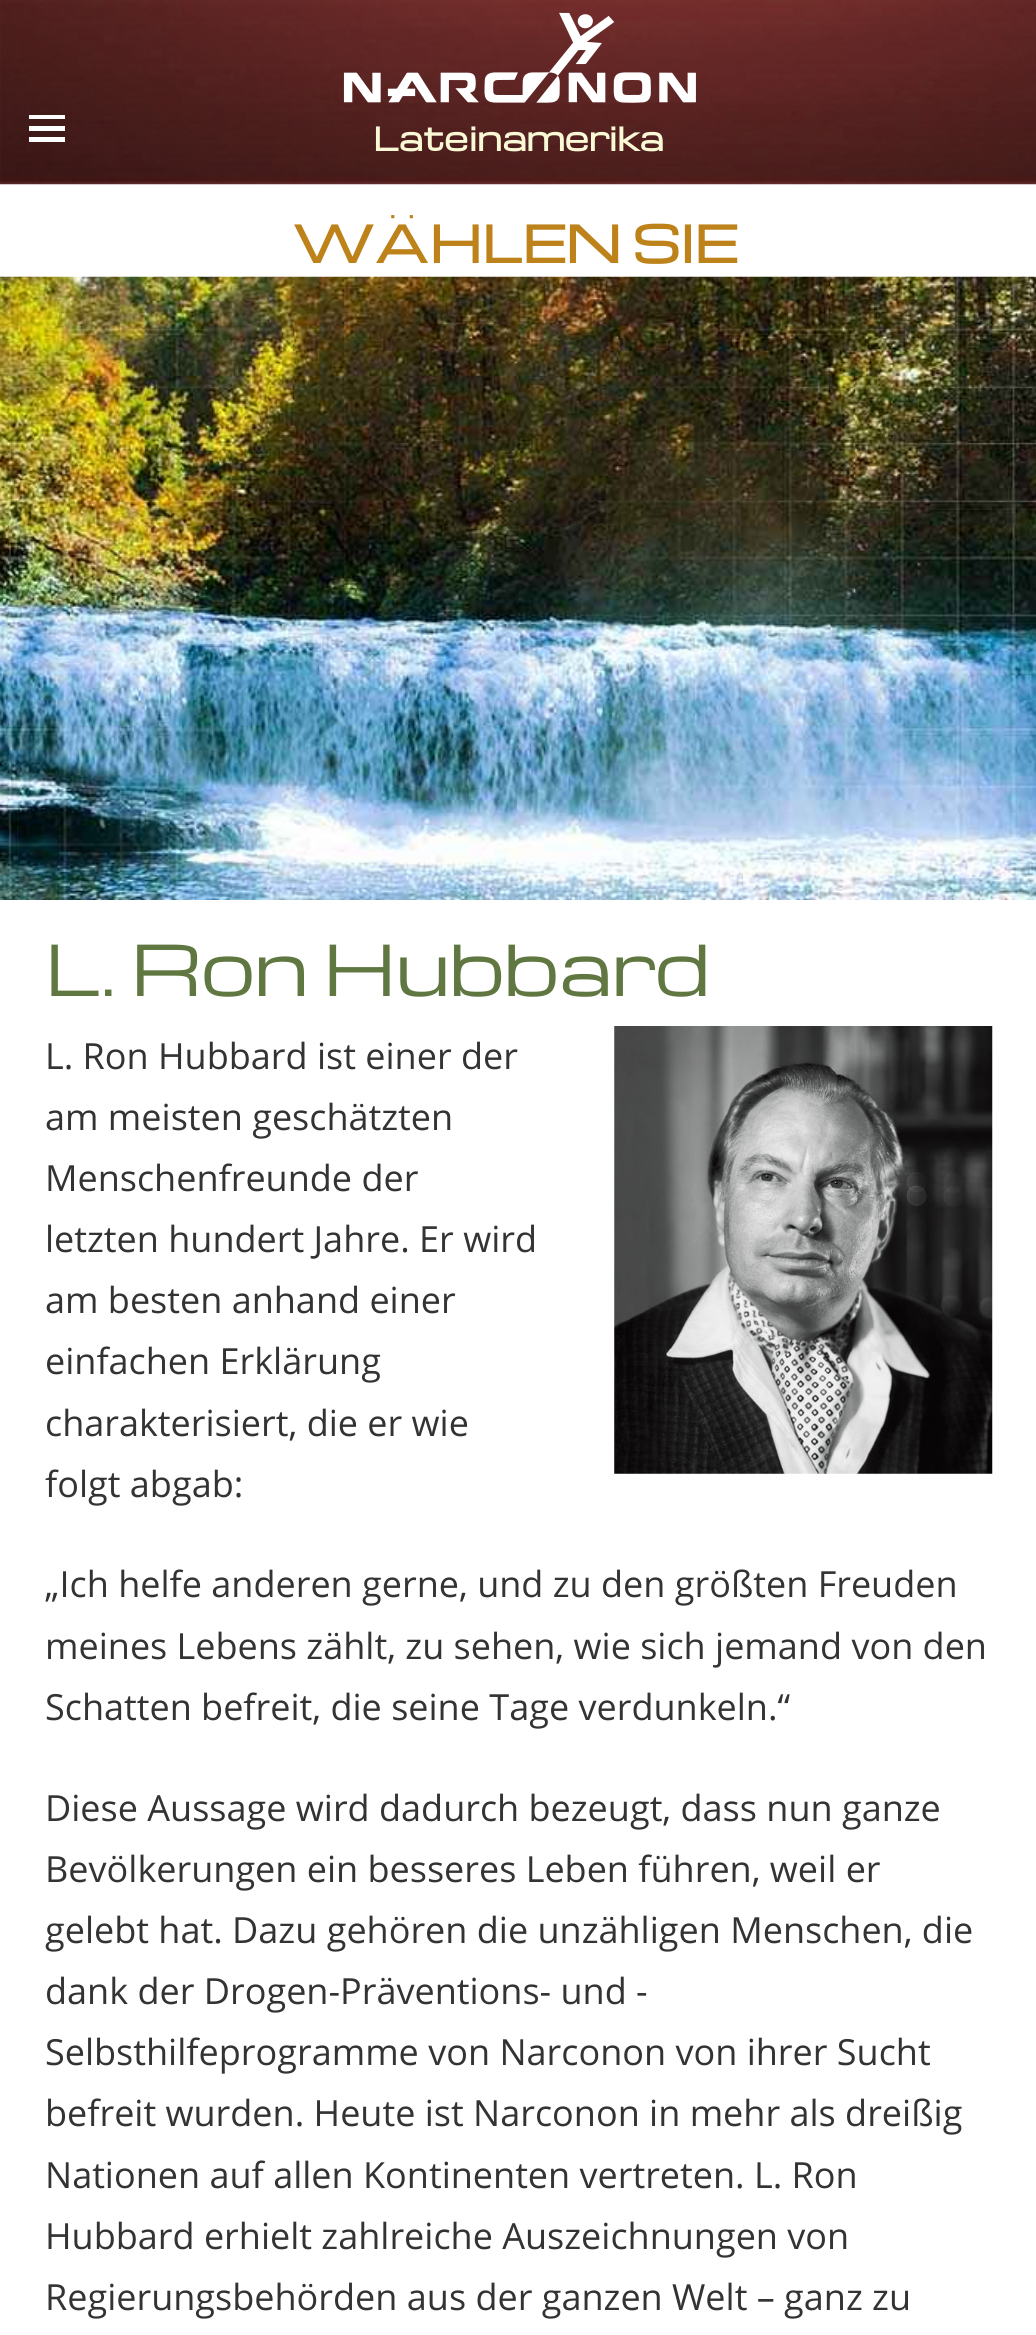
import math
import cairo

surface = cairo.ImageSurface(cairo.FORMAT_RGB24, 1036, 2335)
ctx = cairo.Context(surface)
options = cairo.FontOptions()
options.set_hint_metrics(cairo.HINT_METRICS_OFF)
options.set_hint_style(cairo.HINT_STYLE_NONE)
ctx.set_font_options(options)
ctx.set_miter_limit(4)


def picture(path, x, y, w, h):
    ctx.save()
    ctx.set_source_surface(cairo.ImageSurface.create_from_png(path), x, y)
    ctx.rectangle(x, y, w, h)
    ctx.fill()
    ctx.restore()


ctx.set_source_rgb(1, 1, 1)
ctx.paint()
picture("img1.png", 0, 0, 1036, 185)
ctx.set_source_rgb(1, 1, 1)
ctx.rectangle(29, 115, 36, 4)
ctx.fill()
ctx.rectangle(29, 126, 36, 5)
ctx.fill()
ctx.rectangle(29, 137, 36, 5)
ctx.fill()
picture("img2.png", 343, 12, 353, 91)
ctx.select_font_face("Michroma", cairo.FONT_SLANT_NORMAL, cairo.FONT_WEIGHT_BOLD)
ctx.set_font_size(31.5)
ctx.set_source_rgb(0.98, 0.973, 0.839)
ctx.move_to(373, 151)
ctx.show_text("Lateinamerika")
ctx.set_font_size(49.5)
ctx.set_source_rgb(0.741, 0.514, 0.102)
ctx.move_to(293, 263)
ctx.show_text("WÄHLEN SIE")
ctx.select_font_face("Michroma")
ctx.set_font_size(68.5)
ctx.set_source_rgb(0.38, 0.467, 0.255)
ctx.move_to(45, 996)
ctx.show_text("L. Ron Hubbard")
ctx.select_font_face("Open Sans")
ctx.set_font_size(36)
ctx.set_source_rgb(0.2, 0.2, 0.2)
ctx.move_to(45, 1069)
ctx.show_text("L. Ron Hubbard ist einer der")
ctx.move_to(45, 1130)
ctx.show_text("am meisten geschätzten")
ctx.move_to(45, 1191)
ctx.show_text("Menschenfreunde der")
ctx.move_to(45, 1252)
ctx.show_text("letzten hundert Jahre. Er wird")
ctx.move_to(45, 1313)
ctx.show_text("am besten anhand einer")
ctx.move_to(45, 1374)
ctx.show_text("einfachen Erklärung")
ctx.move_to(45, 1436)
ctx.show_text("charakterisiert, die er wie")
ctx.move_to(45, 1497)
ctx.show_text("folgt abgab:")
picture("img3.png", 614, 1026, 379, 448)
ctx.move_to(45, 1597)
ctx.show_text("„Ich helfe anderen gerne, und zu den größten Freuden")
ctx.move_to(45, 1659)
ctx.show_text("meines Lebens zählt, zu sehen, wie sich jemand von den")
ctx.move_to(45, 1720)
ctx.show_text("Schatten befreit, die seine Tage verdunkeln.“")
ctx.move_to(45, 1821)
ctx.show_text("Diese Aussage wird dadurch bezeugt, dass nun ganze")
ctx.move_to(45, 1882)
ctx.show_text("Bevölkerungen ein besseres Leben führen, weil er")
ctx.move_to(45, 1943)
ctx.show_text("gelebt hat. Dazu gehören die unzähligen Menschen, die")
ctx.move_to(45, 2004)
ctx.show_text("dank der Drogen-Präventions- und -")
ctx.move_to(45, 2065)
ctx.show_text("Selbsthilfeprogramme von Narconon von ihrer Sucht")
ctx.move_to(45, 2126)
ctx.show_text("befreit wurden. Heute ist Narconon in mehr als dreißig")
ctx.move_to(45, 2188)
ctx.show_text("Nationen auf allen Kontinenten vertreten. L. Ron")
ctx.move_to(45, 2249)
ctx.show_text("Hubbard erhielt zahlreiche Auszeichnungen von")
ctx.move_to(45, 2310)
ctx.show_text("Regierungsbehörden aus der ganzen Welt – ganz zu")
picture("img4.png", 0, 276, 1036, 624)
surface.write_to_png("page.png")
